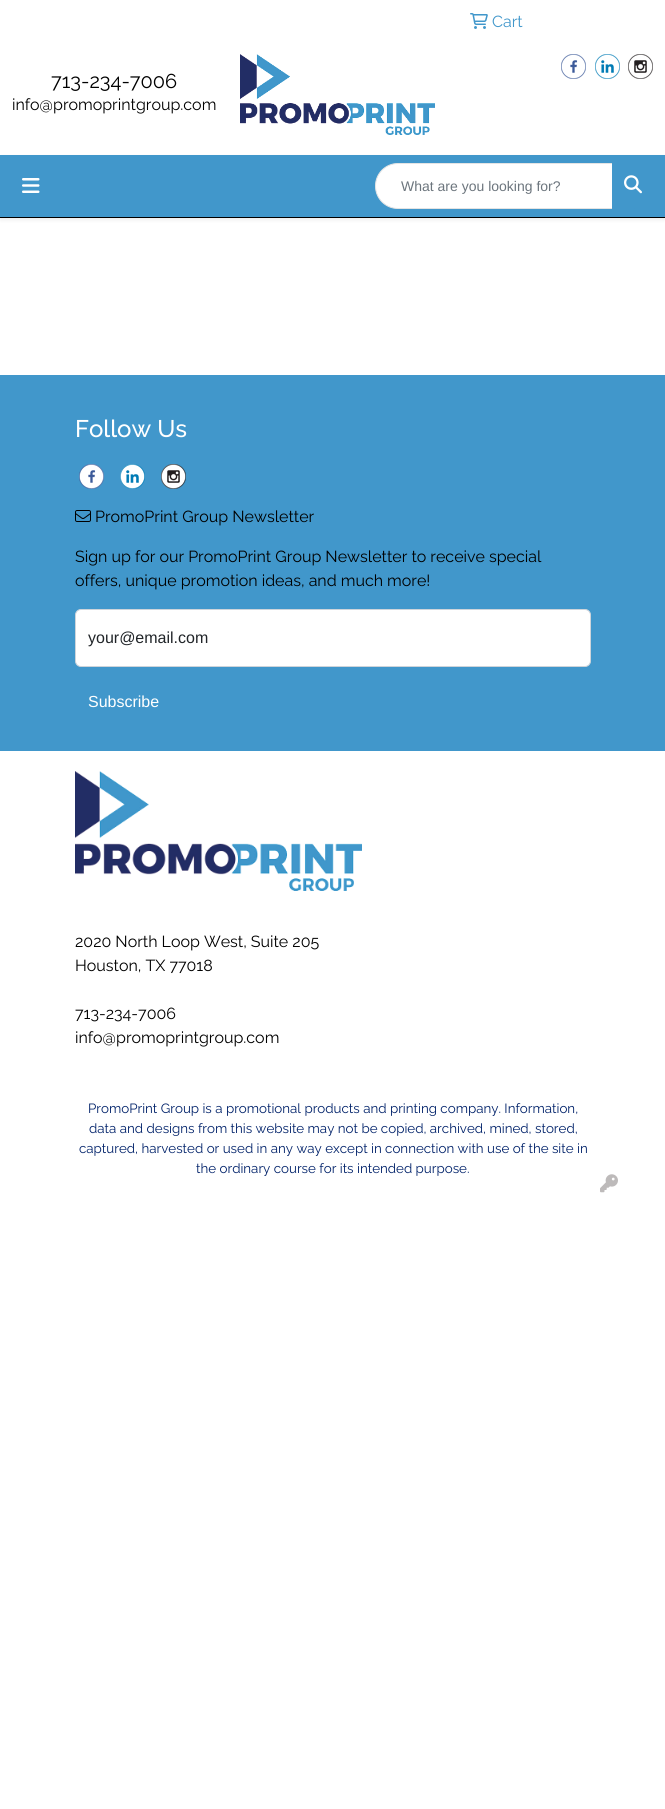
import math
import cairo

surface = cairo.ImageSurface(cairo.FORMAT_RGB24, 665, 1809)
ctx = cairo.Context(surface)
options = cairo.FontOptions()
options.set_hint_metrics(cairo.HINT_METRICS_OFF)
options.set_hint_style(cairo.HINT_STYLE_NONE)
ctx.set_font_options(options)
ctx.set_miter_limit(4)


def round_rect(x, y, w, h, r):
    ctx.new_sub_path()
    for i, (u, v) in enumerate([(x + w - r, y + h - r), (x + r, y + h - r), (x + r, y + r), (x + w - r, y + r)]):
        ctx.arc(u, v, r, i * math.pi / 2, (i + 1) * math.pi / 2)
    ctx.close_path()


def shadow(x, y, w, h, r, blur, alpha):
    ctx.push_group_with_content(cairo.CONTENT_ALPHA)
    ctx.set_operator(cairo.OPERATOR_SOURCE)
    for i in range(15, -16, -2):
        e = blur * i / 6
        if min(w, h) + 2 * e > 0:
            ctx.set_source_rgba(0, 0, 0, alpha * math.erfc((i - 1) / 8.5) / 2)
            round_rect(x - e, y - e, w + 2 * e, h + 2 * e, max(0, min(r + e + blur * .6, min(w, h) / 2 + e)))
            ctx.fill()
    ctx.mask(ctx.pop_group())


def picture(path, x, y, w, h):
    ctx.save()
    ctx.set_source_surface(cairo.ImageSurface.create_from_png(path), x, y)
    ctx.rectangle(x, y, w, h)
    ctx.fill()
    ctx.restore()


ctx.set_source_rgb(1, 1, 1)
ctx.paint()
picture("img1.png", 470, 13, 18, 16)
ctx.select_font_face("Raleway")
ctx.set_font_size(16)
ctx.set_source_rgb(0.255, 0.592, 0.796)
ctx.move_to(492, 27)
ctx.show_text("Cart")
picture("img2.png", 240, 54, 195, 81)
picture("img3.png", 561, 54, 25, 25)
picture("img4.png", 595, 54, 25, 25)
picture("img5.png", 628, 54, 25, 25)
ctx.set_font_size(20)
ctx.set_source_rgb(0, 0, 0)
ctx.move_to(51, 88)
ctx.show_text("713-234-7006")
ctx.set_font_size(16)
ctx.move_to(12, 110)
ctx.show_text("info@promoprintgroup.com")
ctx.set_source_rgb(0, 0, 0)
shadow(0, 157, 665, 63, 0, 2, 0.07)
ctx.set_source_rgb(0.255, 0.592, 0.796)
ctx.rectangle(0, 155, 665, 62)
ctx.fill()
ctx.set_source_rgb(0, 0, 0)
ctx.rectangle(0, 217, 665, 1)
ctx.fill()
picture("img6.png", 22, 178, 18, 15)
ctx.set_source_rgb(1, 1, 1)
ctx.new_path()
ctx.move_to(398, 163.5)
ctx.line_to(612.5, 163.5)
ctx.line_to(612.5, 208.5)
ctx.line_to(398, 208.5)
ctx.curve_to(385.5, 208.5, 375.5, 198.5, 375.5, 186)
ctx.curve_to(375.5, 173.5, 385.5, 163.5, 398, 163.5)
ctx.close_path()
ctx.fill_preserve()
ctx.set_source_rgb(0.894, 0.894, 0.894)
ctx.set_line_width(1)
ctx.stroke()
ctx.select_font_face("Liberation Sans")
ctx.set_font_size(14)
ctx.set_source_rgb(0.424, 0.459, 0.49)
ctx.move_to(401, 191)
ctx.show_text("What are you looking for?")
ctx.set_source_rgb(0.255, 0.592, 0.796)
ctx.new_path()
ctx.move_to(612, 164)
ctx.line_to(632, 164)
ctx.curve_to(644, 164, 654, 174, 654, 186)
ctx.curve_to(654, 198, 644, 208, 632, 208)
ctx.line_to(612, 208)
ctx.close_path()
ctx.fill()
ctx.set_fill_rule(cairo.FILL_RULE_EVEN_ODD)
ctx.new_path()
ctx.move_to(612, 163)
ctx.line_to(632, 163)
ctx.curve_to(645, 163, 655, 173, 655, 186)
ctx.curve_to(655, 199, 645, 209, 632, 209)
ctx.line_to(612, 209)
ctx.close_path()
ctx.move_to(612, 164)
ctx.line_to(632, 164)
ctx.curve_to(644, 164, 654, 174, 654, 186)
ctx.curve_to(654, 198, 644, 208, 632, 208)
ctx.line_to(612, 208)
ctx.close_path()
ctx.fill()
picture("img7.png", 624, 175, 18, 19)
ctx.rectangle(0, 375, 665, 376)
ctx.fill()
ctx.select_font_face("Raleway Medium")
ctx.set_font_size(24)
ctx.set_source_rgb(1, 1, 1)
ctx.move_to(75, 437)
ctx.show_text("Follow Us")
picture("img8.png", 79, 464, 25, 25)
picture("img9.png", 120, 464, 25, 25)
picture("img10.png", 161, 464, 25, 25)
picture("img11.png", 75, 510, 16, 12)
ctx.select_font_face("Raleway")
ctx.set_font_size(16)
ctx.set_source_rgb(0, 0, 0)
ctx.move_to(95, 522)
ctx.show_text("PromoPrint Group Newsletter")
ctx.move_to(75, 562)
ctx.show_text("Sign up for our PromoPrint Group Newsletter to receive special")
ctx.move_to(75, 586)
ctx.show_text("offers, unique promotion ideas, and much more!")
ctx.set_source_rgb(1, 1, 1)
round_rect(75.5, 609.5, 515, 57, 5.5)
ctx.fill_preserve()
ctx.set_source_rgb(0.808, 0.831, 0.855)
ctx.stroke()
ctx.select_font_face("Liberation Sans")
ctx.set_source_rgb(0.129, 0.145, 0.161)
ctx.move_to(88, 643)
ctx.show_text("your@email.com")
ctx.set_source_rgb(1, 1, 1)
ctx.move_to(88, 707)
ctx.show_text("Subscribe")
picture("img12.png", 75, 771, 287, 120)
ctx.select_font_face("Raleway")
ctx.set_source_rgb(0, 0, 0)
ctx.move_to(75, 947)
ctx.show_text("2020 North Loop West, Suite 205")
ctx.move_to(75, 971)
ctx.show_text("Houston, TX 77018")
ctx.move_to(75, 1019)
ctx.show_text("713-234-7006")
ctx.move_to(75, 1043)
ctx.show_text("info@promoprintgroup.com")
ctx.set_font_size(13.35)
ctx.set_source_rgb(0, 0.129, 0.412)
ctx.move_to(88, 1113)
ctx.show_text("PromoPrint Group is a promotional products and printing company. Information,")
ctx.move_to(89, 1133)
ctx.show_text("data and designs from this website may not be copied, archived, mined, stored,")
ctx.move_to(79, 1153)
ctx.show_text("captured, harvested or used in any way except in connection with use of the site in")
ctx.move_to(196, 1173)
ctx.show_text("the ordinary course for its intended purpose.")
picture("img13.png", 600, 1174, 18, 19)
surface.write_to_png("page.png")
